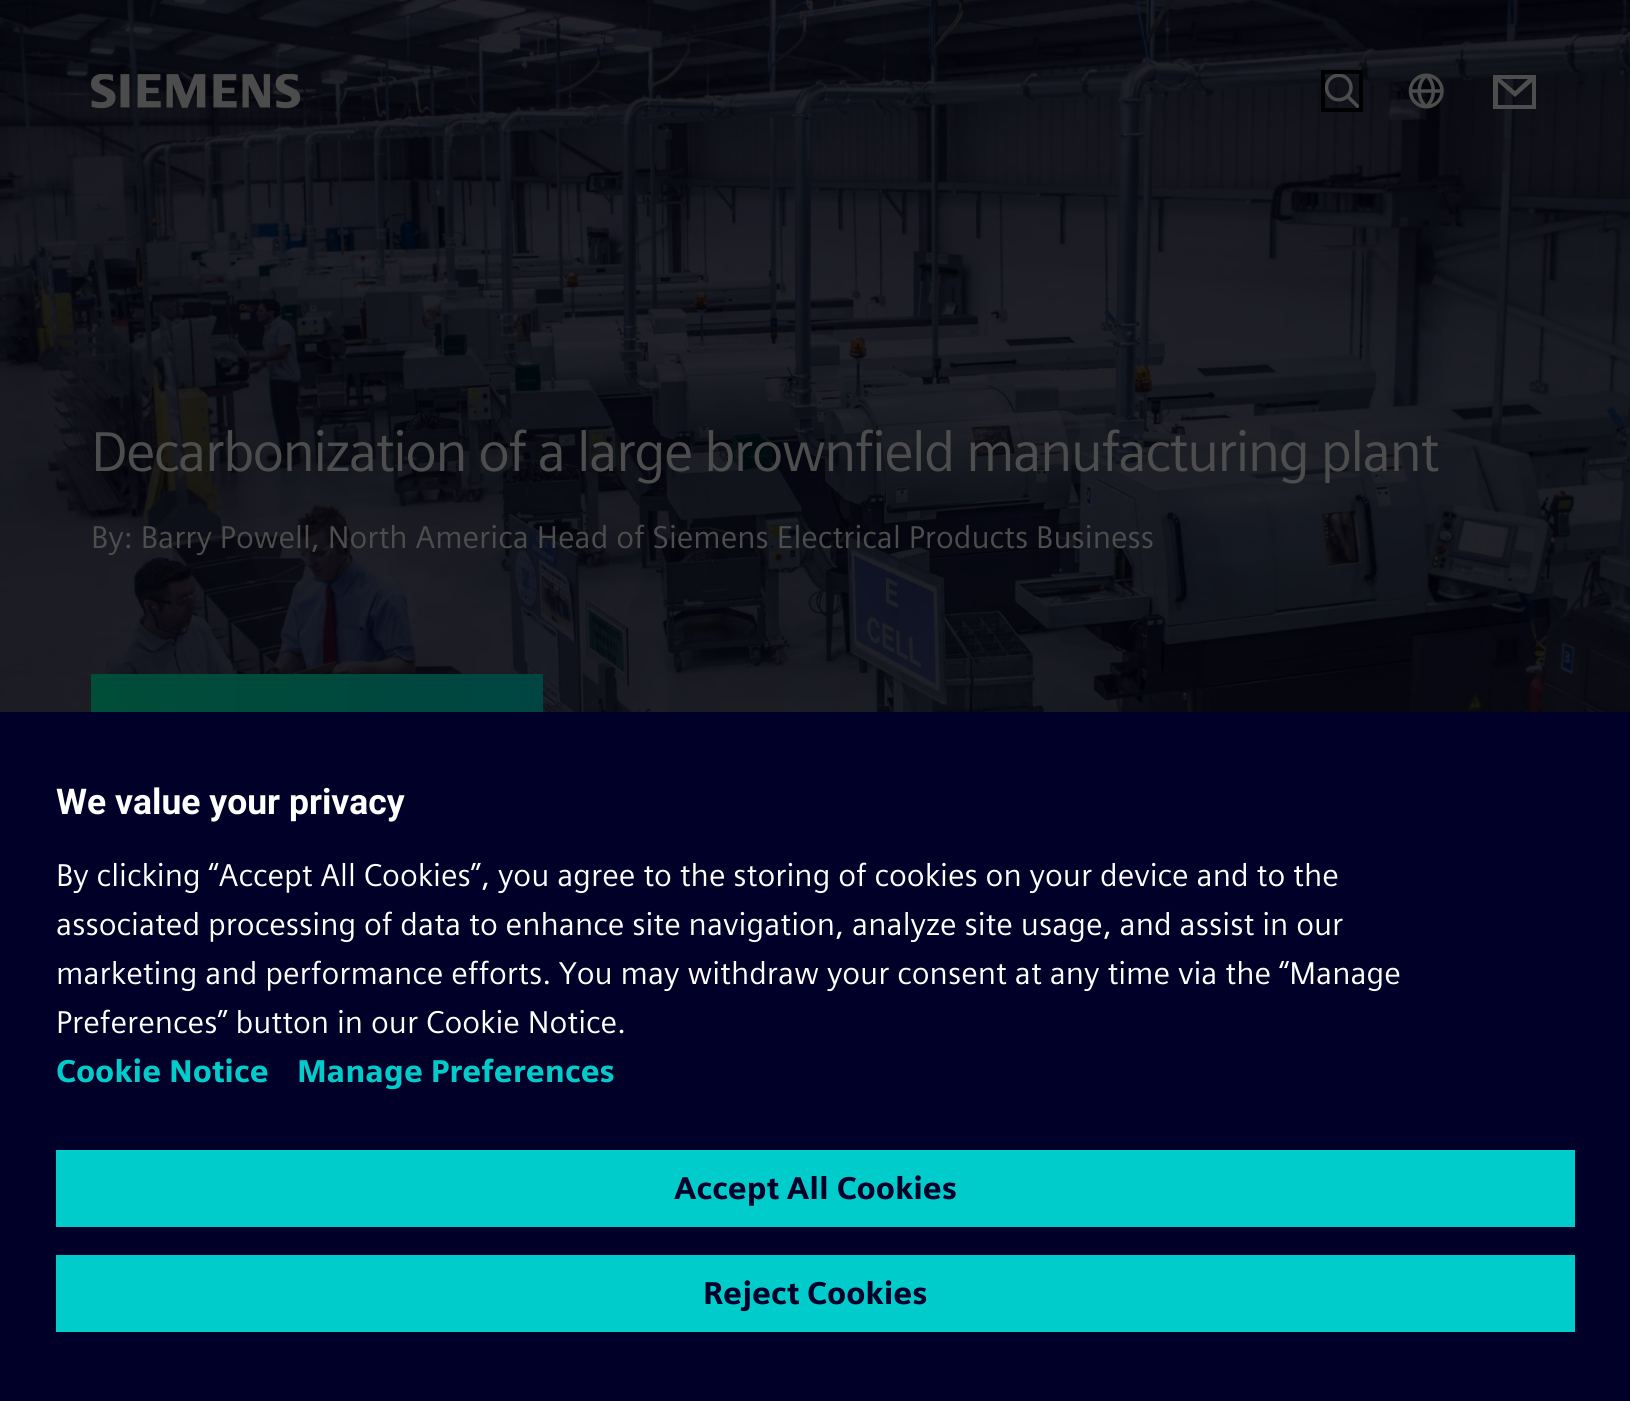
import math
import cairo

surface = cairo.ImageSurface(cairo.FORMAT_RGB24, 1630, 1401)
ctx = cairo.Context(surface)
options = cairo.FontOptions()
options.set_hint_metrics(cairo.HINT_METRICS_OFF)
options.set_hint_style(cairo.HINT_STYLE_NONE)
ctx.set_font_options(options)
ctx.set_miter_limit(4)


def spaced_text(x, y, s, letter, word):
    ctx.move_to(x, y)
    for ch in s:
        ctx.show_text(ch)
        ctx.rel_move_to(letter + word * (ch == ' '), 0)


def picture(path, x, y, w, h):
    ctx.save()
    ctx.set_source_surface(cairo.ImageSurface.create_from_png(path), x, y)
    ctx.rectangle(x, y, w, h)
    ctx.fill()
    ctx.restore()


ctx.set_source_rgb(1, 1, 1)
ctx.paint()
picture("img4.png", 0, 0, 1630, 712)
picture("img1.png", 91, 74, 210, 35)
picture("img2.png", 1325, 74, 34, 34)
ctx.rectangle(1323, 72, 38, 38)
ctx.set_source_rgb(0, 0, 0)
ctx.set_line_width(4)
ctx.stroke()
picture("img3.png", 1408, 73, 36, 36)
ctx.set_source_rgb(0.302, 0.302, 0.302)
ctx.set_fill_rule(cairo.FILL_RULE_EVEN_ODD)
ctx.new_path()
ctx.move_to(1493, 75)
ctx.line_to(1493, 109)
ctx.line_to(1536, 109)
ctx.line_to(1536, 75)
ctx.close_path()
ctx.move_to(1528, 79)
ctx.line_to(1515, 91)
ctx.line_to(1501, 79)
ctx.close_path()
ctx.move_to(1498, 82)
ctx.line_to(1498, 105)
ctx.line_to(1532, 105)
ctx.line_to(1532, 82)
ctx.line_to(1515, 97)
ctx.close_path()
ctx.fill()
ctx.select_font_face("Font")
ctx.set_font_size(56)
spaced_text(91, 471, "Decarbonization of a large brownfield manufacturing plant", -1.75, 0)
ctx.set_font_size(31.5)
ctx.move_to(91, 548)
ctx.show_text("By: Barry Powell, North America Head of Siemens Electrical Products Business")
gradient = cairo.LinearGradient(91, 726, 543, 726)
gradient.add_color_stop_rgba(0, 0, 0.302, 0.22, 1)
gradient.add_color_stop_rgba(1, 0, 0.271, 0.259, 1)
ctx.set_source(gradient)
ctx.rectangle(91, 674, 452, 38)
ctx.fill()
ctx.set_source_rgb(0, 0, 0.157)
ctx.rectangle(0, 712, 1630, 689)
ctx.fill()
ctx.select_font_face("Roboto", cairo.FONT_SLANT_NORMAL, cairo.FONT_WEIGHT_BOLD)
ctx.set_font_size(35.5)
ctx.set_source_rgb(1, 1, 1)
ctx.move_to(56, 814)
ctx.show_text("We value your privacy")
ctx.select_font_face("Font")
ctx.set_font_size(31.5)
ctx.move_to(56, 886)
ctx.show_text("By clicking “Accept All Cookies”, you agree to the storing of cookies on your device and to the")
ctx.move_to(56, 935)
ctx.show_text("associated processing of data to enhance site navigation, analyze site usage, and assist in our")
ctx.move_to(56, 984)
ctx.show_text("marketing and performance efforts. You may withdraw your consent at any time via the “Manage")
ctx.move_to(56, 1033)
ctx.show_text("Preferences” button in our Cookie Notice.")
ctx.select_font_face("Font", cairo.FONT_SLANT_NORMAL, cairo.FONT_WEIGHT_BOLD)
ctx.set_source_rgb(0, 0.8, 0.8)
ctx.move_to(56, 1082)
ctx.show_text("Cookie Notice")
ctx.move_to(297, 1082)
ctx.show_text("Manage Preferences")
ctx.rectangle(56, 1150, 1519, 77)
ctx.fill()
ctx.set_source_rgb(0, 0, 0.157)
ctx.move_to(674, 1199)
ctx.show_text("Accept All Cookies")
ctx.set_source_rgb(0, 0.8, 0.8)
ctx.rectangle(56, 1255, 1519, 77)
ctx.fill()
ctx.set_source_rgb(0, 0, 0.157)
ctx.move_to(703, 1304)
ctx.show_text("Reject Cookies")
surface.write_to_png("page.png")
